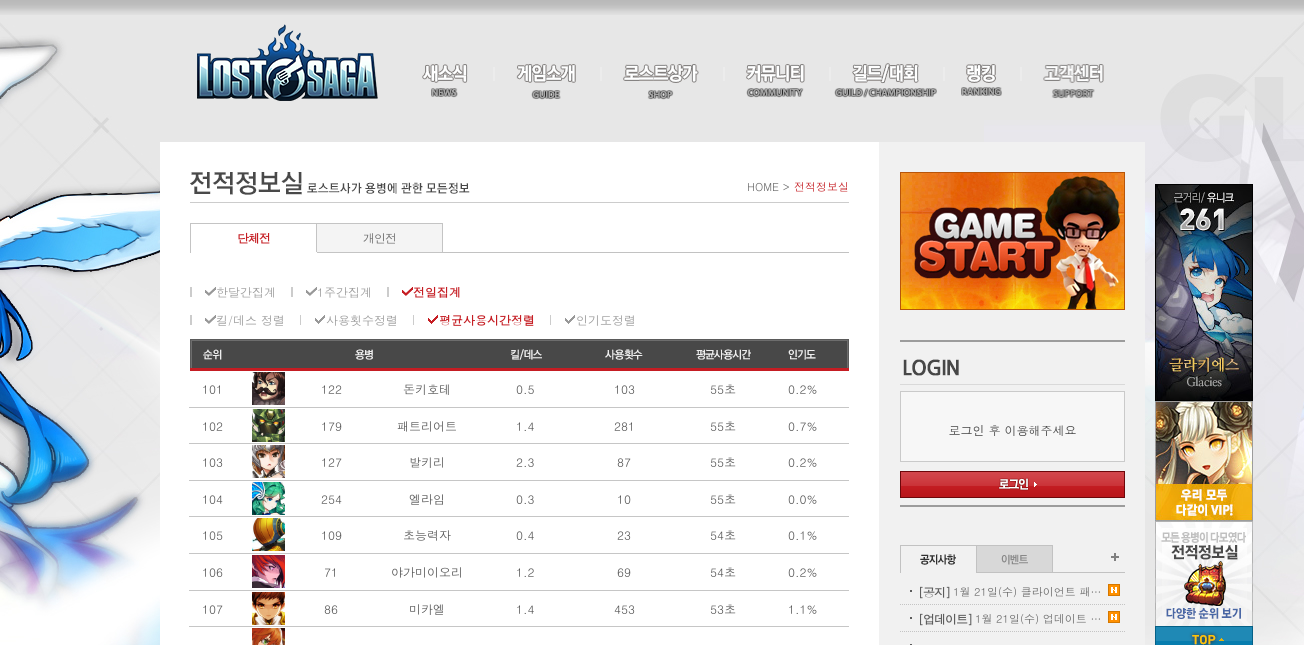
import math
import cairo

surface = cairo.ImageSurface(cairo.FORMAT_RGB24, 1304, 645)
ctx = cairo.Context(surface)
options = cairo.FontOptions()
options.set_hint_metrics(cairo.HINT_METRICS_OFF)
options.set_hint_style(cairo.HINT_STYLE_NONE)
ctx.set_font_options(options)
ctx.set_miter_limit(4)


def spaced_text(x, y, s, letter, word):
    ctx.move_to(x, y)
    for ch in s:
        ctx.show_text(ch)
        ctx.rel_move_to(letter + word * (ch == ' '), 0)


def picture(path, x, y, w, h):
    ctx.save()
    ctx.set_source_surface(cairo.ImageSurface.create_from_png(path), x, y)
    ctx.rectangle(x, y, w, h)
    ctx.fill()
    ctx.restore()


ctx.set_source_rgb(1, 1, 1)
ctx.paint()
picture("img1.png", 0, 0, 1304, 645)
picture("img2.png", 0, 0, 1304, 15)
picture("img3.png", 197, 24, 181, 77)
picture("img4.png", 422, 64, 46, 34)
ctx.set_source_rgb(0.925, 0.925, 0.925)
ctx.rectangle(493, 67, 2, 14)
ctx.fill()
picture("img5.png", 516, 64, 60, 36)
ctx.rectangle(600, 67, 2, 14)
ctx.fill()
picture("img6.png", 623, 64, 76, 36)
ctx.rectangle(723, 67, 2, 14)
ctx.fill()
picture("img7.png", 746, 64, 59, 34)
ctx.rectangle(829, 67, 2, 14)
ctx.fill()
picture("img8.png", 834, 63, 103, 35)
ctx.rectangle(943, 67, 2, 14)
ctx.fill()
picture("img9.png", 961, 64, 41, 32)
ctx.rectangle(1020, 67, 2, 14)
ctx.fill()
picture("img10.png", 1043, 64, 61, 35)
picture("img11.png", 160, 142, 985, 503)
ctx.set_source_rgb(0.8, 0.8, 0.8)
ctx.rectangle(190, 202, 659, 1)
ctx.fill()
picture("img12.png", 190, 172, 280, 23)
ctx.select_font_face("Dotum")
ctx.set_font_size(11)
ctx.set_source_rgb(0.4, 0.4, 0.4)
ctx.move_to(747, 191)
ctx.show_text("HOME >")
ctx.set_source_rgb(0.773, 0.114, 0.137)
ctx.move_to(794, 191)
ctx.show_text("전적정보실")
ctx.set_source_rgb(0.761, 0.761, 0.761)
ctx.rectangle(443, 252, 406, 1)
ctx.fill()
ctx.set_source_rgb(0.769, 0.769, 0.769)
ctx.rectangle(190, 223, 1, 30)
ctx.fill()
ctx.rectangle(191, 223, 252, 1)
ctx.fill()
ctx.rectangle(316, 223, 1, 30)
ctx.fill()
ctx.set_source_rgb(1, 1, 1)
ctx.rectangle(316, 252, 1, 1)
ctx.fill()
ctx.select_font_face("Dotum", cairo.FONT_SLANT_NORMAL, cairo.FONT_WEIGHT_BOLD)
ctx.set_font_size(12)
ctx.set_source_rgb(0.773, 0.114, 0.137)
spaced_text(237, 243, "단체전", -1, 0)
ctx.set_source_rgb(0.957, 0.957, 0.957)
ctx.rectangle(317, 224, 125, 28)
ctx.fill()
ctx.set_source_rgb(0.769, 0.769, 0.769)
ctx.rectangle(442, 223, 1, 30)
ctx.fill()
ctx.rectangle(317, 252, 126, 1)
ctx.fill()
ctx.select_font_face("Dotum")
ctx.set_source_rgb(0.4, 0.4, 0.4)
spaced_text(363, 243, "개인전", -1, 0)
ctx.set_source_rgb(0.8, 0.8, 0.8)
ctx.rectangle(190, 287, 2, 10)
ctx.fill()
picture("img13.png", 205, 287, 11, 9)
ctx.set_source_rgb(0.596, 0.596, 0.596)
ctx.move_to(216, 297)
ctx.show_text("한달간집계")
ctx.set_source_rgb(0.8, 0.8, 0.8)
ctx.rectangle(291, 287, 2, 10)
ctx.fill()
picture("img14.png", 306, 287, 11, 9)
ctx.set_source_rgb(0.596, 0.596, 0.596)
ctx.move_to(317, 297)
ctx.show_text("1주간집계")
ctx.set_source_rgb(0.8, 0.8, 0.8)
ctx.rectangle(387, 287, 2, 10)
ctx.fill()
picture("img15.png", 402, 287, 11, 9)
ctx.select_font_face("Dotum", cairo.FONT_SLANT_NORMAL, cairo.FONT_WEIGHT_BOLD)
ctx.set_source_rgb(0.773, 0.114, 0.137)
ctx.move_to(413, 297)
ctx.show_text("전일집계")
ctx.set_source_rgb(0.8, 0.8, 0.8)
ctx.rectangle(190, 315, 2, 10)
ctx.fill()
picture("img13.png", 205, 315, 11, 9)
ctx.select_font_face("Dotum")
ctx.set_source_rgb(0.596, 0.596, 0.596)
ctx.move_to(216, 325)
ctx.show_text("킬/데스 정렬")
ctx.set_source_rgb(0.8, 0.8, 0.8)
ctx.rectangle(300, 315, 1, 10)
ctx.fill()
picture("img16.png", 315, 315, 10, 9)
ctx.set_source_rgb(0.596, 0.596, 0.596)
ctx.move_to(326, 325)
ctx.show_text("사용횟수정렬")
ctx.set_source_rgb(0.8, 0.8, 0.8)
ctx.rectangle(413, 315, 1, 10)
ctx.fill()
picture("img17.png", 428, 315, 10, 9)
ctx.select_font_face("Dotum", cairo.FONT_SLANT_NORMAL, cairo.FONT_WEIGHT_BOLD)
ctx.set_source_rgb(0.773, 0.114, 0.137)
ctx.move_to(439, 325)
ctx.show_text("평균사용시간정렬")
ctx.set_source_rgb(0.8, 0.8, 0.8)
ctx.rectangle(550, 315, 1, 10)
ctx.fill()
picture("img16.png", 565, 315, 10, 9)
ctx.select_font_face("Dotum")
ctx.set_source_rgb(0.596, 0.596, 0.596)
ctx.move_to(576, 325)
ctx.show_text("인기도정렬")
picture("img18.png", 190, 339, 659, 32)
picture("img19.png", 203, 349, 19, 11)
picture("img20.png", 355, 349, 18, 11)
picture("img21.png", 510, 349, 32, 11)
picture("img22.png", 605, 349, 38, 11)
picture("img23.png", 696, 349, 55, 11)
picture("img24.png", 788, 349, 28, 11)
ctx.set_source_rgb(0.337, 0.337, 0.337)
ctx.move_to(202, 394)
ctx.show_text("101")
picture("img25.png", 252, 372, 33, 33)
ctx.move_to(321, 394)
ctx.show_text("122")
ctx.move_to(403, 394)
ctx.show_text("돈키호테")
ctx.move_to(516, 394)
ctx.show_text("0.5")
ctx.move_to(614, 394)
ctx.show_text("103")
ctx.move_to(710, 394)
ctx.show_text("55초")
ctx.set_source_rgb(0.776, 0.776, 0.776)
ctx.rectangle(189, 407, 660, 1)
ctx.fill()
ctx.set_source_rgb(0.337, 0.337, 0.337)
ctx.move_to(788, 394)
ctx.show_text("0.2%")
ctx.move_to(202, 431)
ctx.show_text("102")
picture("img26.png", 252, 409, 33, 33)
ctx.move_to(321, 431)
ctx.show_text("179")
ctx.move_to(397, 431)
ctx.show_text("패트리어트")
ctx.move_to(516, 431)
ctx.show_text("1.4")
ctx.move_to(614, 431)
ctx.show_text("281")
ctx.move_to(710, 431)
ctx.show_text("55초")
ctx.set_source_rgb(0.776, 0.776, 0.776)
ctx.rectangle(189, 443, 660, 1)
ctx.fill()
ctx.set_source_rgb(0.337, 0.337, 0.337)
ctx.move_to(788, 431)
ctx.show_text("0.7%")
ctx.move_to(202, 467)
ctx.show_text("103")
picture("img27.png", 252, 445, 33, 33)
ctx.move_to(321, 467)
ctx.show_text("127")
ctx.move_to(409, 467)
ctx.show_text("발키리")
ctx.move_to(516, 467)
ctx.show_text("2.3")
ctx.move_to(617, 467)
ctx.show_text("87")
ctx.move_to(710, 467)
ctx.show_text("55초")
ctx.set_source_rgb(0.776, 0.776, 0.776)
ctx.rectangle(189, 480, 660, 1)
ctx.fill()
ctx.set_source_rgb(0.337, 0.337, 0.337)
ctx.move_to(788, 467)
ctx.show_text("0.2%")
ctx.move_to(202, 504)
ctx.show_text("104")
picture("img28.png", 252, 482, 33, 33)
ctx.move_to(321, 504)
ctx.show_text("254")
ctx.move_to(409, 504)
ctx.show_text("엘라임")
ctx.move_to(516, 504)
ctx.show_text("0.3")
ctx.move_to(617, 504)
ctx.show_text("10")
ctx.move_to(710, 504)
ctx.show_text("55초")
ctx.set_source_rgb(0.776, 0.776, 0.776)
ctx.rectangle(189, 516, 660, 1)
ctx.fill()
ctx.set_source_rgb(0.337, 0.337, 0.337)
ctx.move_to(788, 504)
ctx.show_text("0.0%")
ctx.move_to(202, 540)
ctx.show_text("105")
picture("img29.png", 252, 518, 33, 33)
ctx.move_to(321, 540)
ctx.show_text("109")
ctx.move_to(403, 540)
ctx.show_text("초능력자")
ctx.move_to(516, 540)
ctx.show_text("0.4")
ctx.move_to(617, 540)
ctx.show_text("23")
ctx.move_to(710, 540)
ctx.show_text("54초")
ctx.set_source_rgb(0.776, 0.776, 0.776)
ctx.rectangle(189, 553, 660, 1)
ctx.fill()
ctx.set_source_rgb(0.337, 0.337, 0.337)
ctx.move_to(788, 540)
ctx.show_text("0.1%")
ctx.move_to(202, 577)
ctx.show_text("106")
picture("img30.png", 252, 555, 33, 33)
ctx.move_to(324, 577)
ctx.show_text("71")
ctx.move_to(391, 577)
ctx.show_text("야가미이오리")
ctx.move_to(516, 577)
ctx.show_text("1.2")
ctx.move_to(617, 577)
ctx.show_text("69")
ctx.move_to(710, 577)
ctx.show_text("54초")
ctx.set_source_rgb(0.776, 0.776, 0.776)
ctx.rectangle(189, 590, 660, 1)
ctx.fill()
ctx.set_source_rgb(0.337, 0.337, 0.337)
ctx.move_to(788, 577)
ctx.show_text("0.2%")
ctx.move_to(202, 614)
ctx.show_text("107")
picture("img31.png", 252, 592, 33, 33)
ctx.move_to(324, 614)
ctx.show_text("86")
ctx.move_to(409, 614)
ctx.show_text("미카엘")
ctx.move_to(516, 614)
ctx.show_text("1.4")
ctx.move_to(614, 614)
ctx.show_text("453")
ctx.move_to(710, 614)
ctx.show_text("53초")
ctx.set_source_rgb(0.776, 0.776, 0.776)
ctx.rectangle(189, 626, 660, 1)
ctx.fill()
ctx.set_source_rgb(0.337, 0.337, 0.337)
ctx.move_to(788, 614)
ctx.show_text("1.1%")
picture("img32.png", 252, 628, 33, 17)
picture("img33.png", 900, 172, 225, 138)
picture("img34.png", 900, 340, 225, 167)
ctx.set_source_rgb(0.761, 0.761, 0.761)
ctx.rectangle(1053, 572, 72, 1)
ctx.fill()
ctx.set_source_rgb(0.847, 0.847, 0.847)
ctx.rectangle(977, 546, 75, 26)
ctx.fill()
picture("img35.png", 1001, 554, 27, 11)
ctx.set_source_rgb(0.761, 0.761, 0.761)
ctx.rectangle(900, 545, 77, 1)
ctx.fill()
ctx.rectangle(976.5, 545.5, 76, 27)
ctx.set_line_width(1)
ctx.stroke()
picture("img36.png", 920, 554, 36, 11)
ctx.rectangle(900, 545, 1, 28)
ctx.fill()
picture("img37.png", 1111, 553, 8, 8)
ctx.new_path()
ctx.move_to(900, 604.5)
ctx.line_to(1125, 604.5)
ctx.set_source_rgb(0.769, 0.769, 0.769)
ctx.set_dash([1, 1])
ctx.stroke()
ctx.set_source_rgb(0.361, 0.361, 0.361)
ctx.rectangle(910, 590, 2, 2)
ctx.fill()
ctx.select_font_face("Dotum", cairo.FONT_SLANT_NORMAL, cairo.FONT_WEIGHT_BOLD)
spaced_text(918, 597, "[공지]", -1, 0)
ctx.select_font_face("Dotum")
ctx.set_font_size(11)
ctx.set_source_rgb(0.4, 0.4, 0.4)
ctx.move_to(953, 596)
ctx.show_text("1월 21일(수) 클라이언트 패…")
picture("img38.png", 1108, 584, 12, 12)
ctx.new_path()
ctx.move_to(900, 631.5)
ctx.line_to(1125, 631.5)
ctx.set_source_rgb(0.769, 0.769, 0.769)
ctx.stroke()
ctx.set_source_rgb(0.361, 0.361, 0.361)
ctx.rectangle(910, 617, 2, 2)
ctx.fill()
ctx.select_font_face("Dotum", cairo.FONT_SLANT_NORMAL, cairo.FONT_WEIGHT_BOLD)
ctx.set_font_size(12)
spaced_text(918, 624, "[업데이트]", -1, 0)
ctx.select_font_face("Dotum")
ctx.set_font_size(11)
ctx.set_source_rgb(0.4, 0.4, 0.4)
ctx.move_to(975, 623)
ctx.show_text("1월 21일(수) 업데이트 …")
picture("img38.png", 1108, 611, 12, 12)
ctx.set_source_rgb(0.361, 0.361, 0.361)
ctx.rectangle(910, 644, 2, 1)
ctx.fill()
picture("img39.png", 1155, 184, 98, 217)
picture("img40.png", 1155, 401, 98, 120)
picture("img41.png", 1155, 521, 98, 105)
picture("img42.png", 1155, 626, 98, 19)
surface.write_to_png("page.png")
